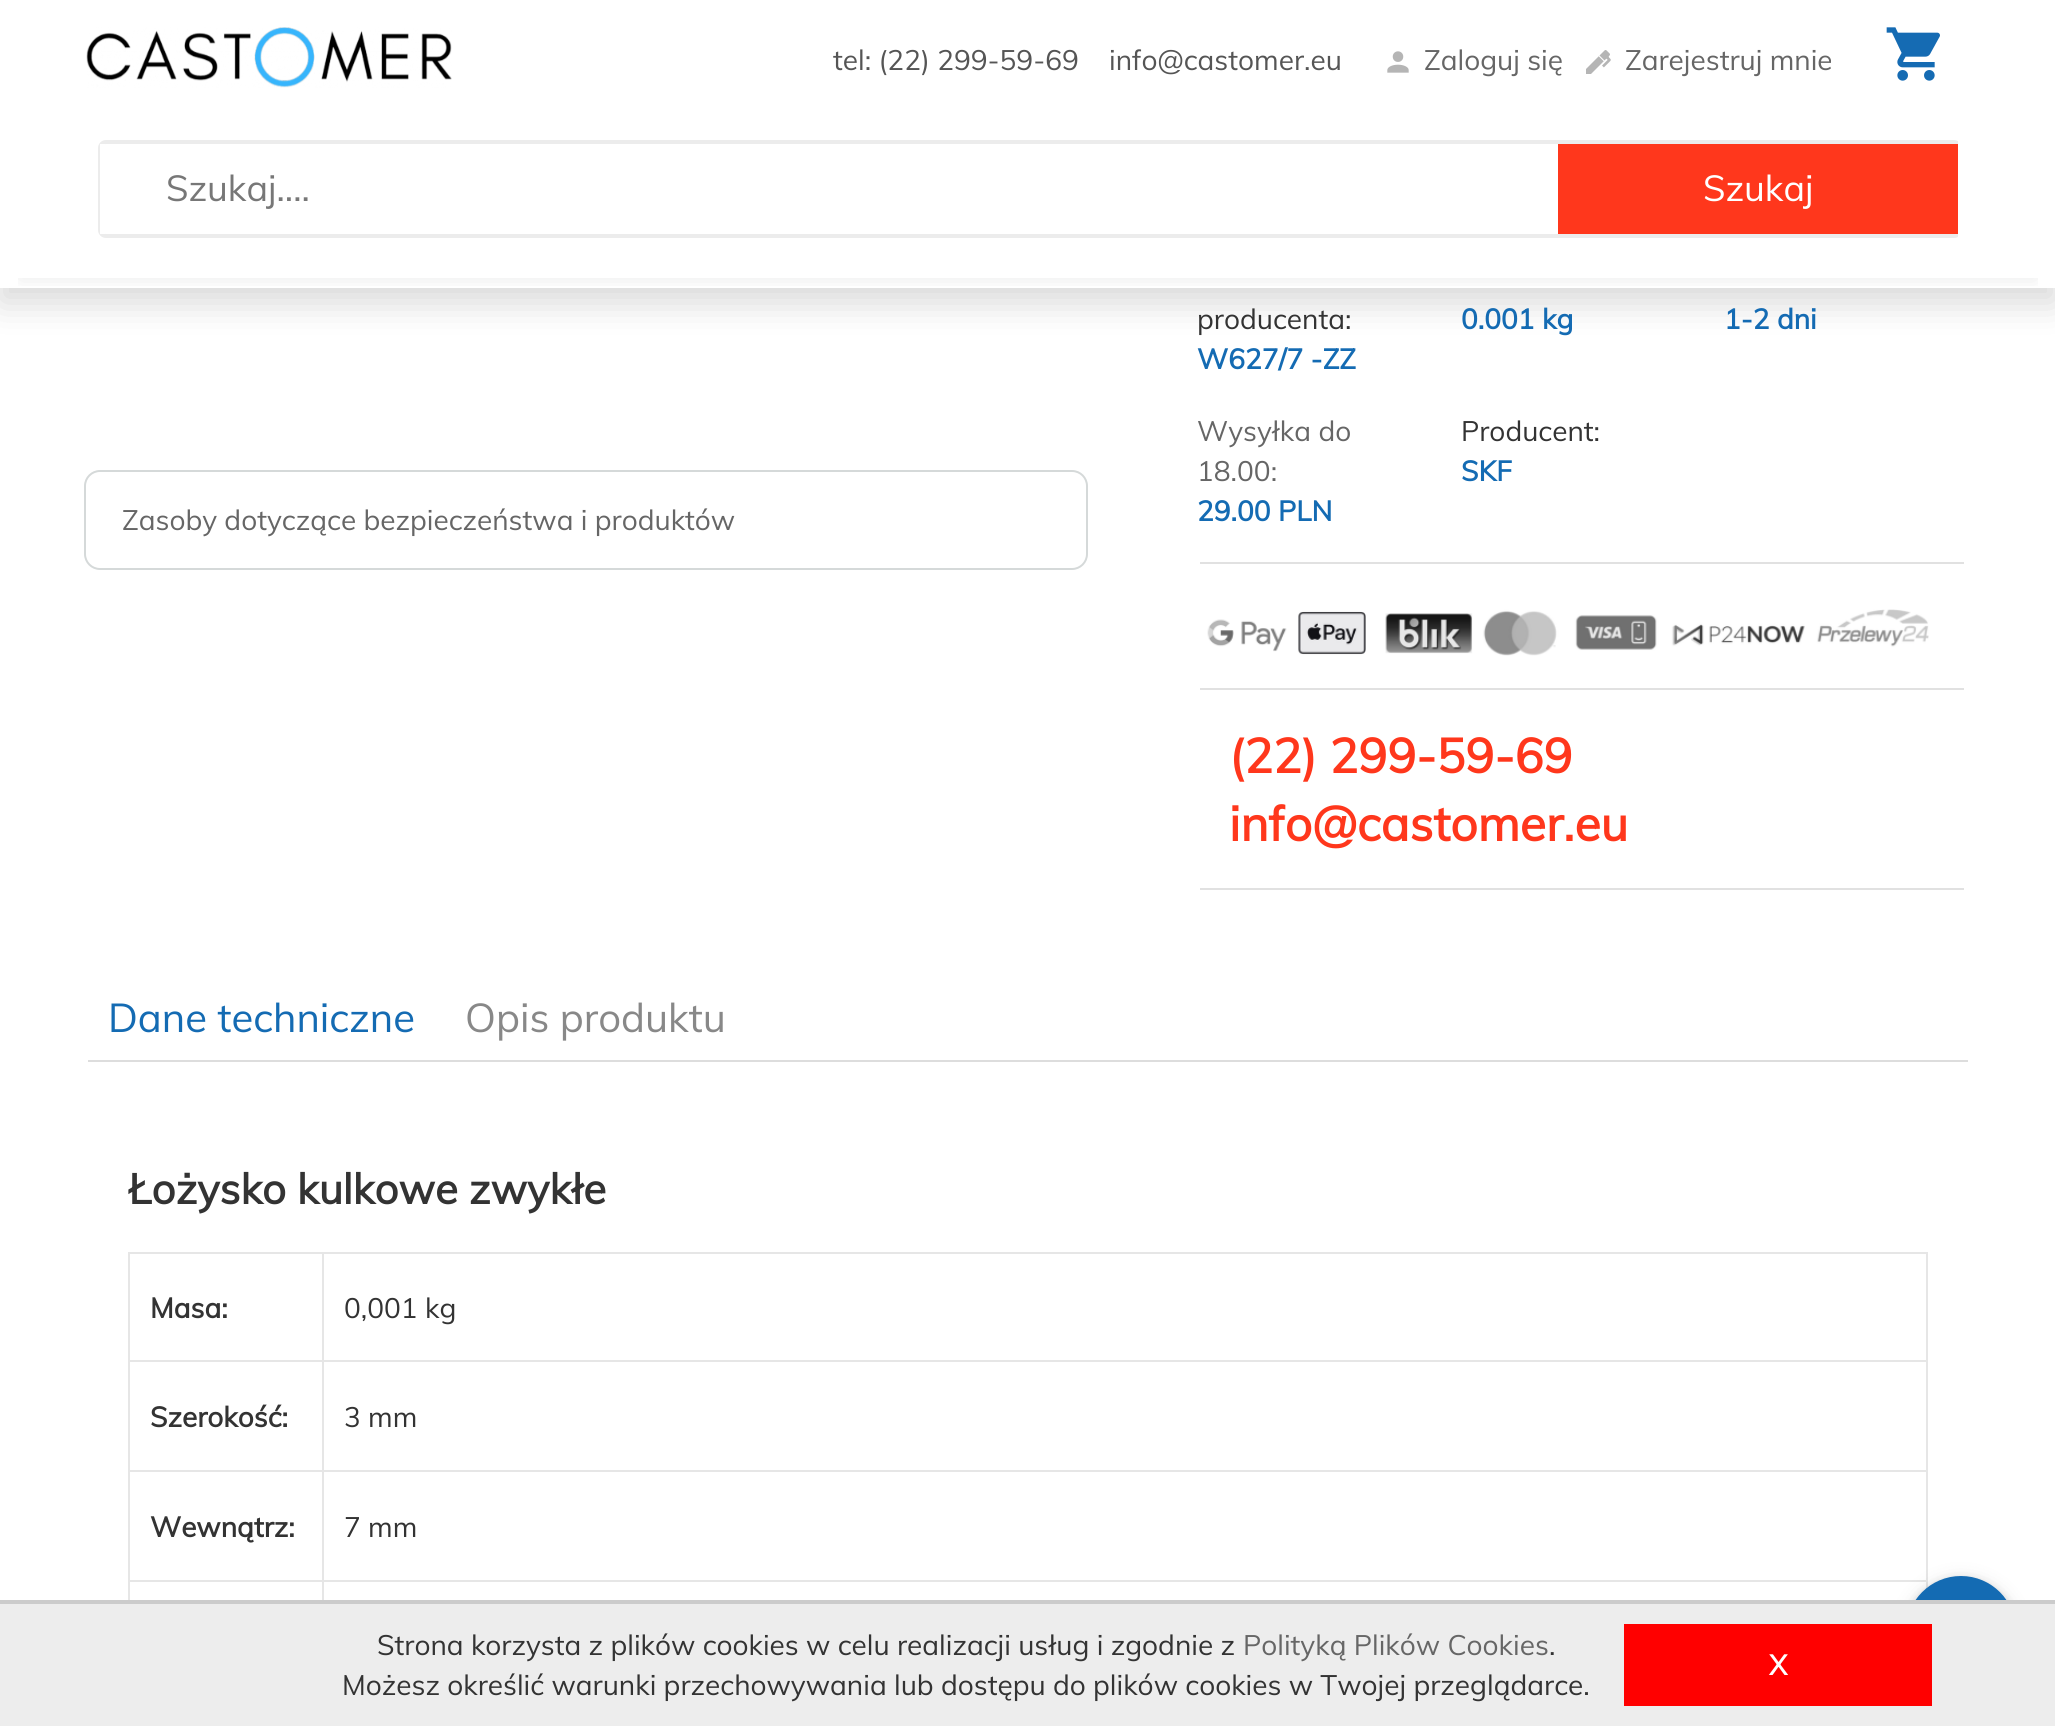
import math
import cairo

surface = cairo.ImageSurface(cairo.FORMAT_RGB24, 2055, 1726)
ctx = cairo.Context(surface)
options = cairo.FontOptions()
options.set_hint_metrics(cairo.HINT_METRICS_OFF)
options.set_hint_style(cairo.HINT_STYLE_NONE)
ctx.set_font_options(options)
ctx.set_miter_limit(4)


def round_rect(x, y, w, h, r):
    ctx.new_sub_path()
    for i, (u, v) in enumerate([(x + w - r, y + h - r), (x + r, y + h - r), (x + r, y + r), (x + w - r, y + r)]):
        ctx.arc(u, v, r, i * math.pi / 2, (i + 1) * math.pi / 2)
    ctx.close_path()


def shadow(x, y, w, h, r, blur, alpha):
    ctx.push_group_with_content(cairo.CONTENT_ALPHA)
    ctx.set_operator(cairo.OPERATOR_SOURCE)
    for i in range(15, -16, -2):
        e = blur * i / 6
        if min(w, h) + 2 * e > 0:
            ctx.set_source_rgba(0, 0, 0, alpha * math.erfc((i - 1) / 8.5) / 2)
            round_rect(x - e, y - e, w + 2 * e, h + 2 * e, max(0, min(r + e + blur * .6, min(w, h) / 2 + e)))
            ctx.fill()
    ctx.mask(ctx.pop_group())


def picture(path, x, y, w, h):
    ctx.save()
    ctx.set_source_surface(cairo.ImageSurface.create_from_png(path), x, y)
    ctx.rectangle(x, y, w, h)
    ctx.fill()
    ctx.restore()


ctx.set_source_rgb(1, 1, 1)
ctx.paint()
ctx.set_source_rgb(0, 0, 0)
shadow(0, 14, 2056, 288, 0, 18, 0.16)
ctx.set_source_rgb(1, 1, 1)
ctx.rectangle(0, 0, 2055, 288)
ctx.fill()
picture("img1.png", 86, 27, 366, 61)
ctx.select_font_face("Muli")
ctx.set_font_size(28)
ctx.set_source_rgb(0.333, 0.333, 0.333)
ctx.move_to(833, 70)
ctx.show_text("tel: (22) 299-59-69")
ctx.move_to(1109, 70)
ctx.show_text("info@castomer.eu")
picture("img2.png", 1387, 51, 22, 22)
ctx.set_source_rgb(0.4, 0.4, 0.4)
ctx.move_to(1424, 70)
ctx.show_text("Zaloguj się")
picture("img3.png", 1586, 50, 25, 24)
ctx.move_to(1625, 70)
ctx.show_text("Zarejestruj mnie")
picture("img4.png", 1886, 27, 54, 54)
ctx.save()
ctx.rectangle(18, 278, 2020, 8)
ctx.clip()
ctx.set_source_rgb(0.129, 0.137, 0.149)
shadow(20, 140, 2016, 138, 0, 10, 0.1)
ctx.restore()
ctx.save()
ctx.rectangle(94, 140, 1864, 98)
ctx.clip()
round_rect(100, 142, 1860, 94, 6)
ctx.set_source_rgb(0.922, 0.922, 0.922)
ctx.set_line_width(4)
ctx.stroke()
ctx.restore()
ctx.set_source_rgb(1, 1, 1)
ctx.rectangle(100, 144, 5, 90)
ctx.fill()
ctx.set_font_size(36)
ctx.set_source_rgb(0.467, 0.467, 0.467)
ctx.move_to(166, 201)
ctx.show_text("Szukaj....")
ctx.set_source_rgb(1, 0.216, 0.11)
ctx.rectangle(1558, 144, 400, 90)
ctx.fill()
ctx.set_source_rgb(1, 1, 1)
ctx.move_to(1703, 201)
ctx.show_text("Szukaj")
round_rect(85, 471, 1002, 98, 15)
ctx.set_source_rgb(0.835, 0.851, 0.851)
ctx.stroke()
ctx.set_font_size(28)
ctx.set_source_rgb(0.4, 0.4, 0.4)
ctx.move_to(122, 530)
ctx.show_text("Zasoby dotyczące bezpieczeństwa i produktów")
ctx.set_source_rgb(0.882, 0.882, 0.882)
ctx.rectangle(1200, 562, 764, 2)
ctx.fill()
ctx.set_source_rgb(0.2, 0.2, 0.2)
ctx.move_to(1197, 329)
ctx.show_text("producenta:")
ctx.select_font_face("Muli", cairo.FONT_SLANT_NORMAL, cairo.FONT_WEIGHT_BOLD)
ctx.set_source_rgb(0.082, 0.42, 0.702)
ctx.move_to(1197, 369)
ctx.show_text("W627/7 -ZZ")
ctx.move_to(1461, 329)
ctx.show_text("0.001 kg")
ctx.move_to(1724, 329)
ctx.show_text("1-2 dni")
ctx.select_font_face("Muli")
ctx.set_source_rgb(0.4, 0.4, 0.4)
ctx.move_to(1197, 441)
ctx.show_text("Wysyłka do")
ctx.move_to(1197, 481)
ctx.show_text("18.00:")
ctx.select_font_face("Muli", cairo.FONT_SLANT_NORMAL, cairo.FONT_WEIGHT_BOLD)
ctx.set_source_rgb(0.082, 0.42, 0.702)
ctx.move_to(1197, 521)
ctx.show_text("29.00 PLN")
ctx.select_font_face("Muli")
ctx.set_source_rgb(0.2, 0.2, 0.2)
ctx.move_to(1461, 441)
ctx.show_text("Producent:")
ctx.select_font_face("Muli", cairo.FONT_SLANT_NORMAL, cairo.FONT_WEIGHT_BOLD)
ctx.set_source_rgb(0.082, 0.42, 0.702)
ctx.move_to(1461, 481)
ctx.show_text("SKF")
ctx.set_source_rgb(0.882, 0.882, 0.882)
ctx.rectangle(1200, 688, 764, 2)
ctx.fill()
picture("img5.png", 1207, 609, 722, 47)
ctx.rectangle(1200, 888, 764, 2)
ctx.fill()
ctx.set_font_size(48)
ctx.set_source_rgb(1, 0.216, 0.11)
ctx.move_to(1229, 773)
ctx.show_text("(22) 299-59-69")
ctx.move_to(1229, 841)
ctx.show_text("info@castomer.eu")
ctx.set_source_rgb(0.867, 0.867, 0.867)
ctx.rectangle(88, 1060, 1880, 2)
ctx.fill()
ctx.select_font_face("Muli")
ctx.set_font_size(40)
ctx.set_source_rgb(0.082, 0.42, 0.702)
ctx.move_to(108, 1032)
ctx.show_text("Dane techniczne")
ctx.set_source_rgb(0.533, 0.533, 0.533)
ctx.move_to(465, 1032)
ctx.show_text("Opis produktu")
ctx.select_font_face("Muli", cairo.FONT_SLANT_NORMAL, cairo.FONT_WEIGHT_BOLD)
ctx.set_font_size(42)
ctx.set_source_rgb(0.2, 0.2, 0.2)
ctx.move_to(128, 1204)
ctx.show_text("Łożysko kulkowe zwykłe")
ctx.rectangle(129, 1253, 194, 108)
ctx.set_source_rgb(0.902, 0.902, 0.902)
ctx.stroke()
ctx.set_font_size(28)
ctx.set_source_rgb(0.2, 0.2, 0.2)
ctx.move_to(150, 1318)
ctx.show_text("Masa:")
ctx.set_source_rgb(0.902, 0.902, 0.902)
ctx.rectangle(324, 1252, 1604, 2)
ctx.fill()
ctx.rectangle(1926, 1252, 2, 337)
ctx.fill()
ctx.rectangle(324, 1360, 1604, 2)
ctx.fill()
ctx.select_font_face("Muli")
ctx.set_source_rgb(0.2, 0.2, 0.2)
ctx.move_to(344, 1318)
ctx.show_text("0,001 kg")
ctx.set_source_rgb(0.902, 0.902, 0.902)
ctx.rectangle(322, 1362, 2, 238)
ctx.fill()
ctx.rectangle(128, 1470, 1800, 2)
ctx.fill()
ctx.rectangle(128, 1362, 2, 110)
ctx.fill()
ctx.select_font_face("Muli", cairo.FONT_SLANT_NORMAL, cairo.FONT_WEIGHT_BOLD)
ctx.set_source_rgb(0.2, 0.2, 0.2)
ctx.move_to(150, 1427)
ctx.show_text("Szerokość:")
ctx.select_font_face("Muli")
ctx.move_to(344, 1427)
ctx.show_text("3 mm")
ctx.set_source_rgb(0.902, 0.902, 0.902)
ctx.rectangle(128, 1580, 1800, 2)
ctx.fill()
ctx.rectangle(128, 1472, 2, 128)
ctx.fill()
ctx.select_font_face("Muli", cairo.FONT_SLANT_NORMAL, cairo.FONT_WEIGHT_BOLD)
ctx.set_source_rgb(0.2, 0.2, 0.2)
ctx.move_to(150, 1537)
ctx.show_text("Wewnątrz:")
ctx.select_font_face("Muli")
ctx.move_to(344, 1537)
ctx.show_text("7 mm")
ctx.set_source_rgb(0, 0, 0)
shadow(1906, 1580, 110, 110, 55, 10, 0.12)
shadow(1906, 1580, 110, 110, 55, 5, 0.16)
ctx.set_source_rgb(0.082, 0.42, 0.702)
ctx.arc(1961, 1631, 55, 0, 2 * math.pi)
ctx.fill()
ctx.set_source_rgb(0.929, 0.929, 0.929)
ctx.rectangle(0, 1604, 2055, 122)
ctx.fill()
ctx.set_source_rgb(0.8, 0.8, 0.8)
ctx.rectangle(0, 1600, 2055, 4)
ctx.fill()
ctx.set_source_rgb(0.2, 0.2, 0.2)
ctx.move_to(377, 1655)
ctx.show_text("Strona korzysta z plików cookies w celu realizacji usług i zgodnie z")
ctx.set_source_rgb(0.4, 0.4, 0.4)
ctx.move_to(1243, 1655)
ctx.show_text("Polityką Plików Cookies")
ctx.set_source_rgb(0.2, 0.2, 0.2)
ctx.move_to(1549, 1655)
ctx.show_text(".")
ctx.move_to(342, 1695)
ctx.show_text("Możesz określić warunki przechowywania lub dostępu do plików cookies w Twojej przeglądarce.")
ctx.set_source_rgb(1, 0, 0)
ctx.rectangle(1624, 1624, 308, 82)
ctx.fill()
ctx.select_font_face("Muli", cairo.FONT_SLANT_NORMAL, cairo.FONT_WEIGHT_BOLD)
ctx.set_source_rgb(1, 1, 1)
ctx.move_to(1769, 1675)
ctx.show_text("X")
surface.write_to_png("page.png")
